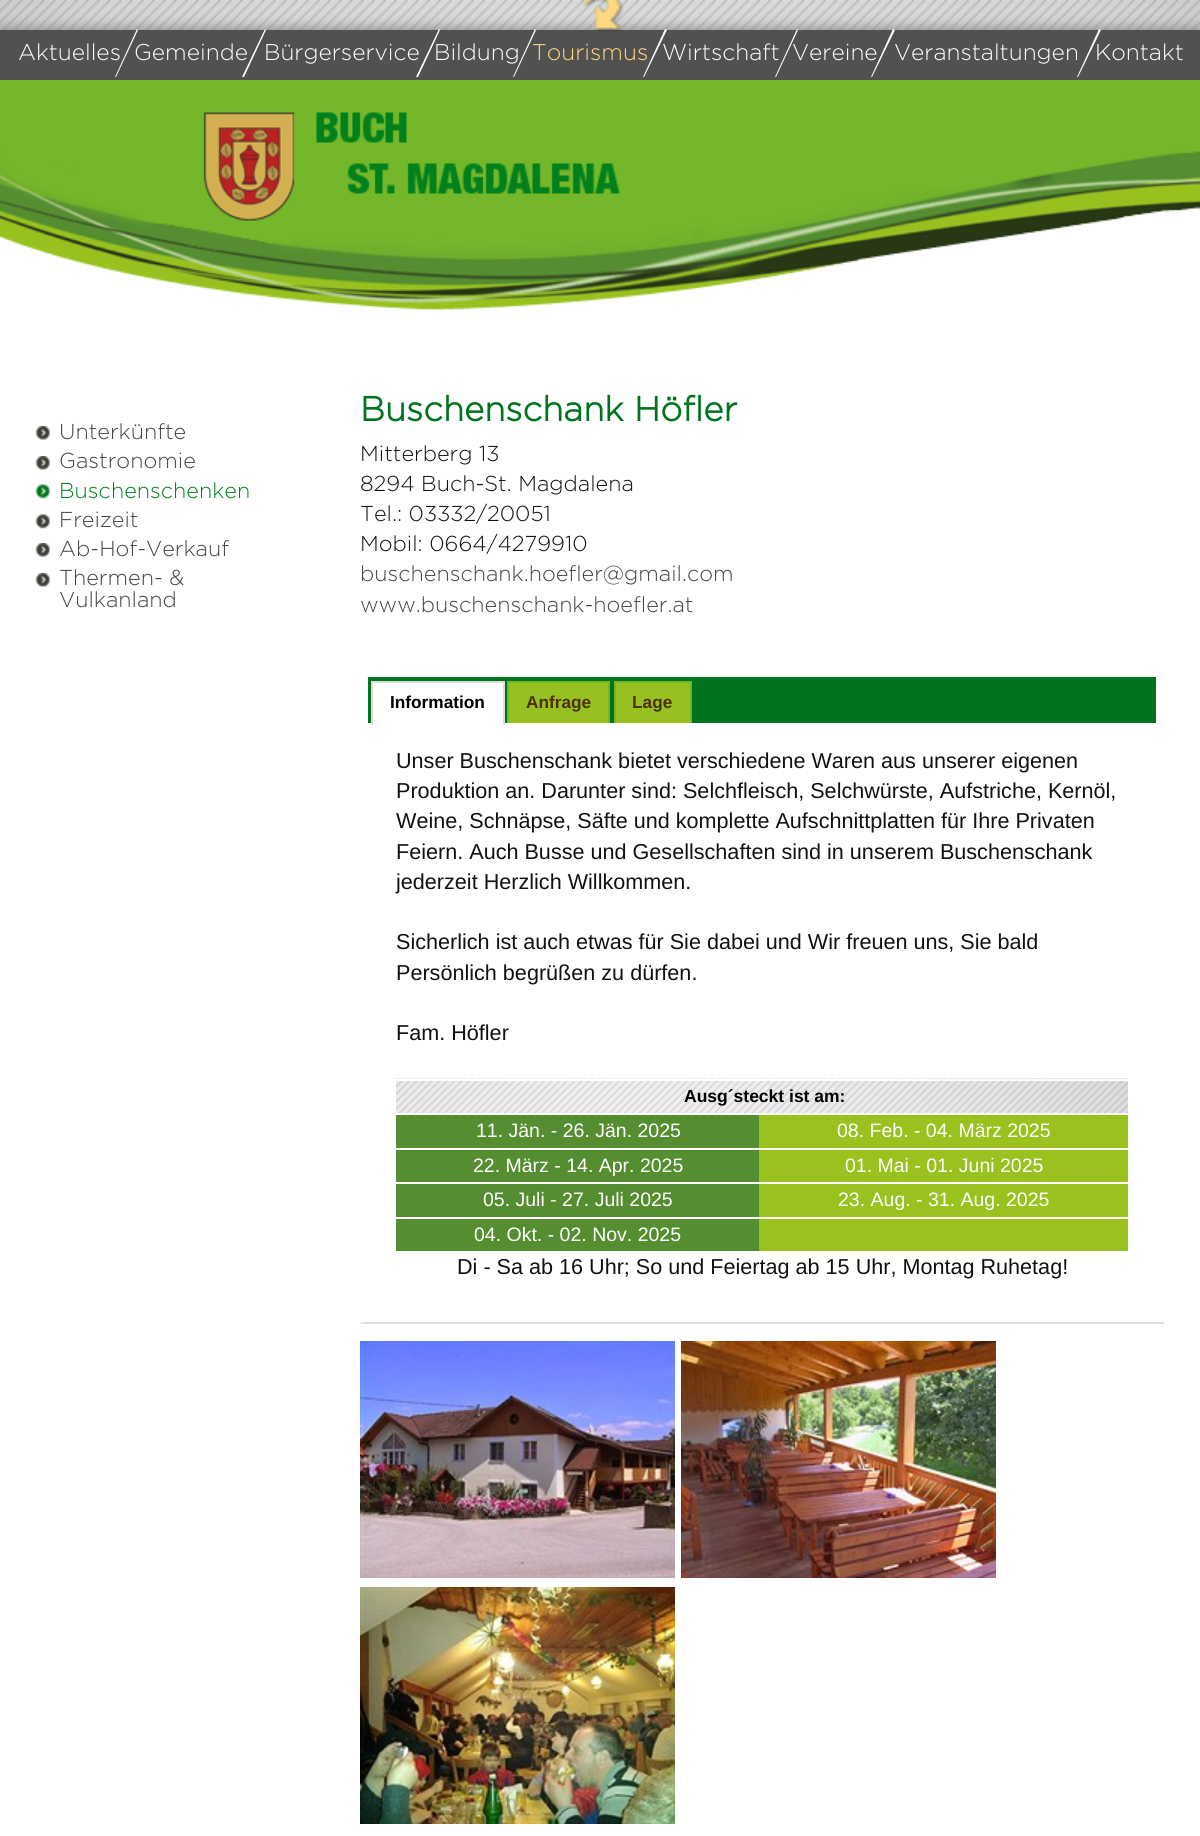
import math
import cairo

surface = cairo.ImageSurface(cairo.FORMAT_RGB24, 1200, 1836)
ctx = cairo.Context(surface)
options = cairo.FontOptions()
options.set_hint_metrics(cairo.HINT_METRICS_OFF)
options.set_hint_style(cairo.HINT_STYLE_NONE)
ctx.set_font_options(options)
ctx.set_miter_limit(4)


def round_rect(x, y, w, h, r):
    ctx.new_sub_path()
    for i, (u, v) in enumerate([(x + w - r, y + h - r), (x + r, y + h - r), (x + r, y + r), (x + w - r, y + r)]):
        ctx.arc(u, v, r, i * math.pi / 2, (i + 1) * math.pi / 2)
    ctx.close_path()


def shadow(x, y, w, h, r, blur, alpha):
    ctx.push_group_with_content(cairo.CONTENT_ALPHA)
    ctx.set_operator(cairo.OPERATOR_SOURCE)
    for i in range(15, -16, -2):
        e = blur * i / 6
        if min(w, h) + 2 * e > 0:
            ctx.set_source_rgba(0, 0, 0, alpha * math.erfc((i - 1) / 8.5) / 2)
            round_rect(x - e, y - e, w + 2 * e, h + 2 * e, max(0, min(r + e + blur * .6, min(w, h) / 2 + e)))
            ctx.fill()
    ctx.mask(ctx.pop_group())


def picture(path, x, y, w, h):
    ctx.save()
    ctx.set_source_surface(cairo.ImageSurface.create_from_png(path), x, y)
    ctx.rectangle(x, y, w, h)
    ctx.fill()
    ctx.restore()


ctx.set_source_rgb(1, 1, 1)
ctx.paint()
picture("img1.png", 0, 0, 1200, 30)
ctx.set_source_rgb(0.467, 0.467, 0.467)
shadow(0, 30, 1200, 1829, 0, 7.5, 1)
ctx.set_source_rgb(1, 1, 1)
ctx.rectangle(0, 206, 1200, 1630)
ctx.fill()
ctx.set_source_rgb(0.318, 0.318, 0.318)
ctx.rectangle(0, 30, 1200, 50)
ctx.fill()
ctx.select_font_face("Gotham Light")
ctx.set_font_size(22.75)
ctx.set_source_rgb(1, 1, 1)
ctx.move_to(18, 60)
ctx.show_text("Aktuelles")
ctx.new_path()
ctx.move_to(137, 29)
ctx.line_to(138, 30)
ctx.line_to(116, 77)
ctx.line_to(115, 77)
ctx.close_path()
ctx.fill()
ctx.move_to(134, 60)
ctx.show_text("Gemeinde")
ctx.new_path()
ctx.move_to(265, 29)
ctx.line_to(266, 30)
ctx.line_to(244, 77)
ctx.line_to(242, 77)
ctx.close_path()
ctx.fill()
ctx.move_to(264, 60)
ctx.show_text("Bürgerservice")
ctx.new_path()
ctx.move_to(439, 29)
ctx.line_to(440, 30)
ctx.line_to(418, 77)
ctx.line_to(416, 77)
ctx.close_path()
ctx.fill()
ctx.move_to(434, 60)
ctx.show_text("Bildung")
picture("img2.png", 583, 0, 41, 32)
ctx.set_source_rgb(1, 0.843, 0.494)
ctx.move_to(532, 60)
ctx.show_text("Tourismus")
ctx.set_source_rgb(1, 1, 1)
ctx.new_path()
ctx.move_to(535, 29)
ctx.line_to(536, 30)
ctx.line_to(514, 77)
ctx.line_to(513, 77)
ctx.close_path()
ctx.fill()
ctx.new_path()
ctx.move_to(665, 29)
ctx.line_to(667, 30)
ctx.line_to(644, 77)
ctx.line_to(643, 77)
ctx.close_path()
ctx.fill()
ctx.move_to(662, 60)
ctx.show_text("Wirtschaft")
ctx.new_path()
ctx.move_to(797, 29)
ctx.line_to(798, 30)
ctx.line_to(776, 77)
ctx.line_to(775, 77)
ctx.close_path()
ctx.fill()
ctx.move_to(792, 60)
ctx.show_text("Vereine")
ctx.new_path()
ctx.move_to(893, 29)
ctx.line_to(895, 30)
ctx.line_to(872, 77)
ctx.line_to(871, 77)
ctx.close_path()
ctx.fill()
ctx.move_to(894, 60)
ctx.show_text("Veranstaltungen")
ctx.new_path()
ctx.move_to(1099, 29)
ctx.line_to(1101, 30)
ctx.line_to(1078, 77)
ctx.line_to(1077, 77)
ctx.close_path()
ctx.fill()
ctx.move_to(1095, 60)
ctx.show_text("Kontakt")
picture("img3.png", 0, 80, 1200, 231)
picture("img4.png", 203, 112, 417, 109)
picture("img5.png", 35, 426, 15, 14)
ctx.set_font_size(21.6)
ctx.set_source_rgb(0.267, 0.267, 0.267)
ctx.move_to(59, 439)
ctx.show_text("Unterkünfte")
picture("img5.png", 35, 456, 15, 14)
ctx.move_to(59, 468)
ctx.show_text("Gastronomie")
picture("img6.png", 35, 484, 15, 15)
ctx.set_source_rgb(0, 0.506, 0.11)
ctx.move_to(59, 498)
ctx.show_text("Buschenschenken")
picture("img7.png", 35, 514, 15, 15)
ctx.set_source_rgb(0.267, 0.267, 0.267)
ctx.move_to(59, 527)
ctx.show_text("Freizeit")
picture("img5.png", 35, 543, 15, 14)
ctx.move_to(59, 556)
ctx.show_text("Ab-Hof-Verkauf")
picture("img5.png", 35, 573, 15, 14)
ctx.move_to(59, 585)
ctx.show_text("Thermen- &")
ctx.move_to(59, 607)
ctx.show_text("Vulkanland")
ctx.select_font_face("Gotham", cairo.FONT_SLANT_NORMAL, cairo.FONT_WEIGHT_BOLD)
ctx.set_font_size(34.5)
ctx.set_source_rgb(0, 0.455, 0.114)
ctx.move_to(360, 421)
ctx.show_text("Buschenschank Höfler")
ctx.select_font_face("Gotham Light")
ctx.set_font_size(21.6)
ctx.set_source_rgb(0.067, 0.067, 0.067)
ctx.move_to(360, 461)
ctx.show_text("Mitterberg 13")
ctx.move_to(360, 491)
ctx.show_text("8294 Buch-St. Magdalena")
ctx.move_to(360, 521)
ctx.show_text("Tel.: 03332/20051")
ctx.move_to(360, 551)
ctx.show_text("Mobil: 0664/4279910")
ctx.set_source_rgb(0.267, 0.267, 0.267)
ctx.move_to(360, 581)
ctx.show_text("buschenschank.hoefler@gmail.com")
ctx.move_to(360, 612)
ctx.show_text("www.buschenschank-hoefler.at")
ctx.set_source_rgb(0.867, 0.867, 0.867)
ctx.rectangle(360, 1322, 804, 2)
ctx.fill()
ctx.set_source_rgb(1, 1, 1)
ctx.rectangle(360, 1322, 2, 1)
ctx.fill()
ctx.set_source_rgb(0, 0.455, 0.114)
ctx.rectangle(368, 677, 788, 46)
ctx.fill()
ctx.set_source_rgb(1, 1, 1)
ctx.rectangle(373, 683, 130, 40)
ctx.fill()
ctx.set_source_rgb(0.867, 0.867, 0.867)
ctx.rectangle(371, 681, 133, 2)
ctx.fill()
ctx.rectangle(503, 681, 2, 44)
ctx.fill()
ctx.rectangle(371, 681, 2, 44)
ctx.fill()
ctx.select_font_face("Liberation Sans", cairo.FONT_SLANT_NORMAL, cairo.FONT_WEIGHT_BOLD)
ctx.set_font_size(17.25)
ctx.set_source_rgb(0, 0, 0)
ctx.move_to(390, 708)
ctx.show_text("Information")
ctx.set_source_rgb(0.592, 0.757, 0.125)
ctx.rectangle(509, 683, 99, 40)
ctx.fill()
ctx.set_source_rgb(0.459, 0.718, 0.165)
ctx.rectangle(507, 681, 102, 2)
ctx.fill()
ctx.rectangle(608, 681, 2, 42)
ctx.fill()
ctx.rectangle(507, 681, 2, 42)
ctx.fill()
ctx.set_source_rgb(0.298, 0.188, 0)
ctx.move_to(526, 708)
ctx.show_text("Anfrage")
ctx.set_source_rgb(0.592, 0.757, 0.125)
ctx.rectangle(616, 683, 74, 40)
ctx.fill()
ctx.set_source_rgb(0.459, 0.718, 0.165)
ctx.rectangle(614, 681, 78, 2)
ctx.fill()
ctx.rectangle(690, 681, 2, 42)
ctx.fill()
ctx.rectangle(614, 681, 2, 42)
ctx.fill()
ctx.set_source_rgb(0.298, 0.188, 0)
ctx.move_to(632, 708)
ctx.show_text("Lage")
ctx.select_font_face("Liberation Sans")
ctx.set_font_size(21.6)
ctx.set_source_rgb(0.067, 0.067, 0.067)
ctx.move_to(396, 768)
ctx.show_text("Unser Buschenschank bietet verschiedene Waren aus unserer eigenen")
ctx.move_to(396, 798)
ctx.show_text("Produktion an. Darunter sind: Selchfleisch, Selchwürste, Aufstriche, Kernöl,")
ctx.move_to(396, 828)
ctx.show_text("Weine, Schnäpse, Säfte und komplette Aufschnittplatten")
ctx.move_to(941, 828)
ctx.show_text("für Ihre Privaten")
ctx.move_to(396, 859)
ctx.show_text("Feiern. Auch Busse und Gesellschaften sind in unserem Buschenschank")
ctx.move_to(396, 889)
ctx.show_text("jederzeit Herzlich Willkommen.")
ctx.move_to(396, 949)
ctx.show_text("Sicherlich ist auch etwas für Sie dabei und Wir freuen uns, Sie bald")
ctx.move_to(396, 980)
ctx.show_text("Persönlich begrüßen zu dürfen.")
ctx.move_to(396, 1040)
ctx.show_text("Fam. Höfler")
ctx.set_source_rgb(0.6, 0.761, 0.118)
ctx.rectangle(759, 1115, 369, 136)
ctx.fill()
picture("img8.png", 396, 1078, 732, 35)
ctx.set_source_rgb(1, 1, 1)
ctx.rectangle(396, 1079, 732, 2)
ctx.fill()
ctx.select_font_face("Liberation Sans", cairo.FONT_SLANT_NORMAL, cairo.FONT_WEIGHT_BOLD)
ctx.set_font_size(17.5)
ctx.set_source_rgb(0, 0, 0)
ctx.move_to(684, 1102)
ctx.show_text("Ausg´steckt ist am:")
ctx.set_source_rgb(0.333, 0.557, 0.188)
ctx.rectangle(396, 1115, 363, 33)
ctx.fill()
ctx.select_font_face("Liberation Sans")
ctx.set_font_size(19.5)
ctx.set_source_rgb(1, 1, 1)
ctx.move_to(476, 1137)
ctx.show_text("11. Jän. - 26. Jän. 2025")
ctx.move_to(837, 1137)
ctx.show_text("08. Feb. - 04. März 2025")
ctx.set_source_rgb(0.333, 0.557, 0.188)
ctx.rectangle(396, 1150, 363, 32)
ctx.fill()
ctx.set_source_rgb(1, 1, 1)
ctx.move_to(473, 1172)
ctx.show_text("22. März - 14. Apr. 2025")
ctx.rectangle(759, 1148, 369, 2)
ctx.fill()
ctx.move_to(845, 1172)
ctx.show_text("01. Mai - 01. Juni 2025")
ctx.set_source_rgb(0.333, 0.557, 0.188)
ctx.rectangle(396, 1184, 363, 33)
ctx.fill()
ctx.set_source_rgb(1, 1, 1)
ctx.move_to(483, 1206)
ctx.show_text("05. Juli - 27. Juli 2025")
ctx.rectangle(759, 1182, 369, 2)
ctx.fill()
ctx.move_to(838, 1206)
ctx.show_text("23. Aug. - 31. Aug. 2025")
ctx.rectangle(759, 1217, 369, 2)
ctx.fill()
ctx.set_source_rgb(0.333, 0.557, 0.188)
ctx.rectangle(396, 1219, 363, 32)
ctx.fill()
ctx.set_source_rgb(1, 1, 1)
ctx.move_to(474, 1241)
ctx.show_text("04. Okt. - 02. Nov. 2025")
ctx.set_font_size(21.6)
ctx.set_source_rgb(0.067, 0.067, 0.067)
ctx.move_to(457, 1274)
ctx.show_text("Di - Sa ab 16 Uhr; So und Feiertag ab 15 Uhr, Montag Ruhetag!")
picture("img9.png", 360, 1341, 315, 237)
picture("img10.png", 681, 1341, 315, 237)
picture("img11.png", 360, 1587, 315, 237)
surface.write_to_png("page.png")
